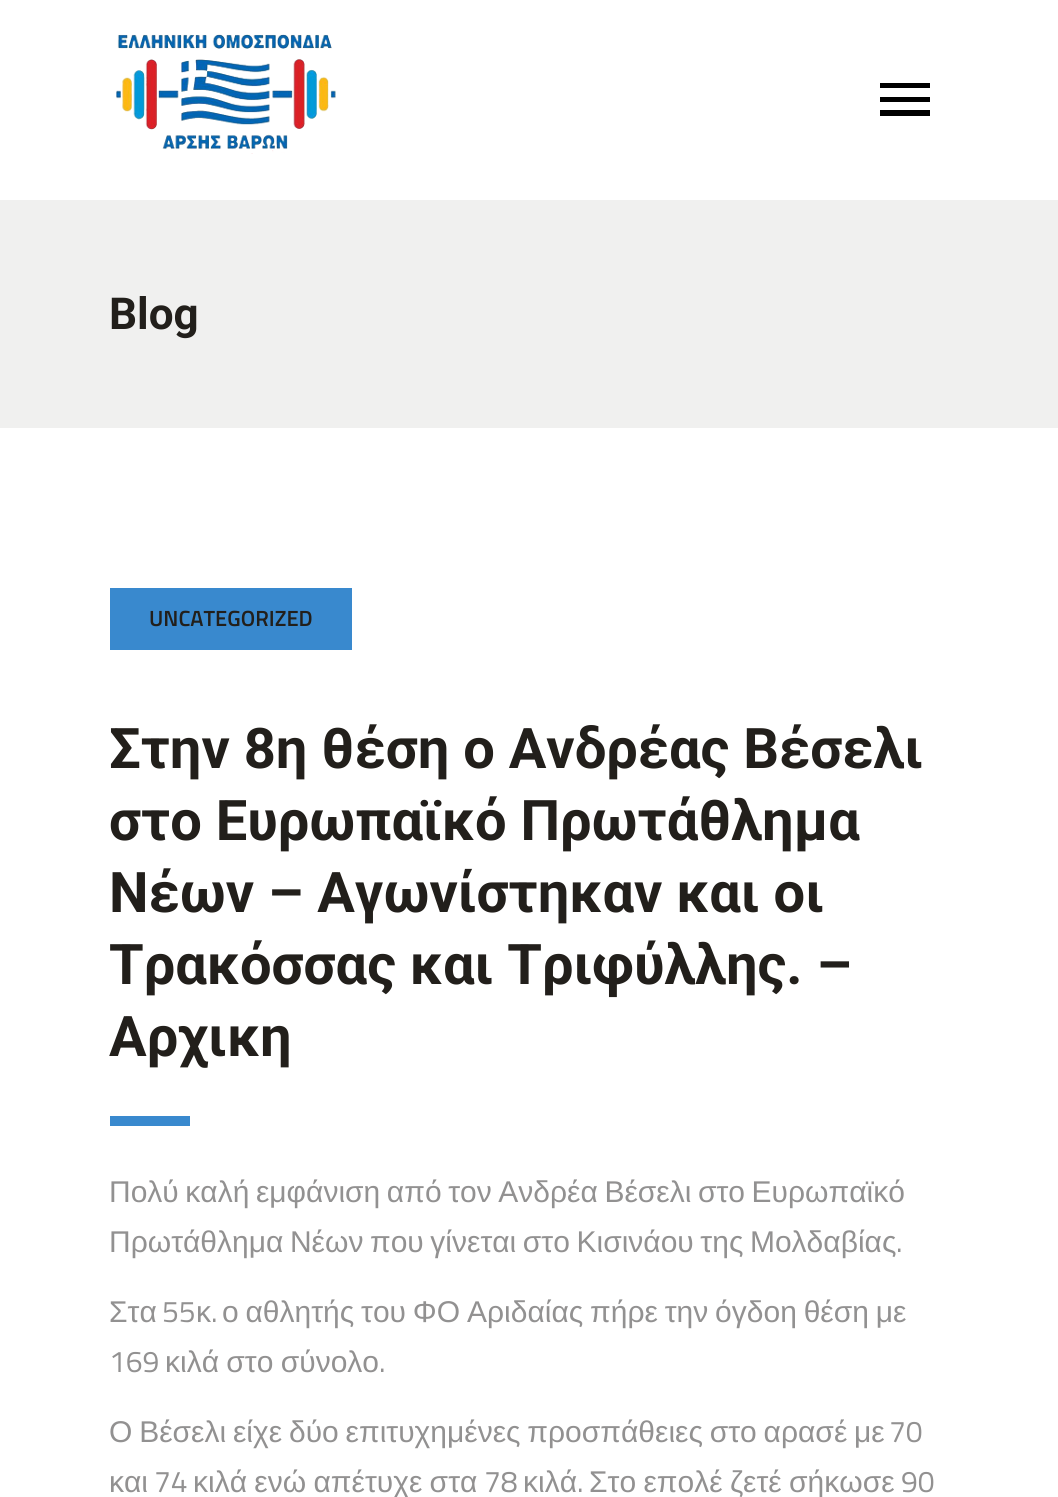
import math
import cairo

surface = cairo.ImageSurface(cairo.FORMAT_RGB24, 1058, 1497)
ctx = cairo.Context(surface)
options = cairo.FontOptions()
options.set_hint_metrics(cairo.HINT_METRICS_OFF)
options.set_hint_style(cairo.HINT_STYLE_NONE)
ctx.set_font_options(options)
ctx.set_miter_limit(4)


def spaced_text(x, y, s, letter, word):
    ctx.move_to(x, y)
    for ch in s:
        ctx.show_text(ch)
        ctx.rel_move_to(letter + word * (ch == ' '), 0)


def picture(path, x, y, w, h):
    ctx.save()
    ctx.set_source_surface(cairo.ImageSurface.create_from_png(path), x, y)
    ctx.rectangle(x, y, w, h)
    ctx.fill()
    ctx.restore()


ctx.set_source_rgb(1, 1, 1)
ctx.paint()
picture("img1.png", 116, 34, 220, 120)
ctx.set_source_rgb(0, 0, 0)
ctx.new_path()
ctx.move_to(880, 116)
ctx.line_to(880, 110)
ctx.line_to(930, 110)
ctx.line_to(930, 116)
ctx.close_path()
ctx.move_to(880, 102)
ctx.line_to(880, 97)
ctx.line_to(930, 97)
ctx.line_to(930, 102)
ctx.close_path()
ctx.move_to(880, 83)
ctx.line_to(930, 83)
ctx.line_to(930, 88)
ctx.line_to(880, 88)
ctx.close_path()
ctx.fill()
ctx.set_source_rgb(0.941, 0.941, 0.937)
ctx.rectangle(0, 200, 1058, 228)
ctx.fill()
ctx.select_font_face("Roboto", cairo.FONT_SLANT_NORMAL, cairo.FONT_WEIGHT_BOLD)
ctx.set_font_size(44)
ctx.set_source_rgb(0.133, 0.122, 0.106)
ctx.move_to(109, 329)
ctx.show_text("Blog")
ctx.set_source_rgb(0.224, 0.537, 0.808)
ctx.rectangle(110, 588, 242, 62)
ctx.fill()
ctx.select_font_face("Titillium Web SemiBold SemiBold")
ctx.set_font_size(22)
ctx.set_source_rgb(0.133, 0.122, 0.106)
ctx.move_to(149, 626)
ctx.show_text("UNCATEGORIZED")
ctx.select_font_face("Roboto", cairo.FONT_SLANT_NORMAL, cairo.FONT_WEIGHT_BOLD)
ctx.set_font_size(56)
ctx.move_to(109, 768)
ctx.show_text("Στην 8η θέση ο Ανδρέας Βέσελι")
ctx.move_to(109, 840)
ctx.show_text("στο Ευρωπαϊκό Πρωτάθλημα")
ctx.move_to(109, 912)
ctx.show_text("Νέων – Αγωνίστηκαν και οι")
ctx.move_to(109, 984)
ctx.show_text("Τρακόσσας και Τριφύλλης. –")
ctx.move_to(109, 1056)
ctx.show_text("Αρχικη")
ctx.set_source_rgb(0.224, 0.537, 0.808)
ctx.rectangle(110, 1116, 80, 10)
ctx.fill()
ctx.select_font_face("Liberation Sans")
ctx.set_font_size(30)
ctx.set_source_rgb(0.573, 0.569, 0.569)
spaced_text(109, 1202, "Πολύ καλή εμφάνιση από τον Ανδρέα Βέσελι στο Ευρωπαϊκό", 0, -1.75)
spaced_text(109, 1252, "Πρωτάθλημα Νέων που γίνεται στο Κισινάου της Μολδαβίας", 0, -1.75)
ctx.select_font_face("Titillium Web")
ctx.move_to(896, 1252)
ctx.show_text(".")
ctx.select_font_face("Liberation Sans")
ctx.move_to(109, 1322)
ctx.show_text("Στα")
ctx.select_font_face("Titillium Web")
ctx.move_to(162, 1322)
ctx.show_text("55")
ctx.select_font_face("Liberation Sans")
ctx.move_to(196, 1322)
ctx.show_text("κ")
ctx.select_font_face("Titillium Web")
ctx.move_to(211, 1322)
ctx.show_text(".")
ctx.select_font_face("Liberation Sans")
spaced_text(222, 1322, "ο αθλητής του ΦΟ Αριδαίας πήρε την όγδοη θέση με", 0, -1.5)
ctx.select_font_face("Titillium Web")
ctx.move_to(109, 1372)
ctx.show_text("169")
ctx.select_font_face("Liberation Sans")
spaced_text(165, 1372, "κιλά στο σύνολο", 0, -1)
ctx.select_font_face("Titillium Web")
ctx.move_to(379, 1372)
ctx.show_text(".")
ctx.select_font_face("Liberation Sans")
spaced_text(109, 1442, "Ο Βέσελι είχε δύο επιτυχημένες προσπάθειες στο αρασέ με", 0, -1.5)
ctx.select_font_face("Titillium Web")
ctx.move_to(889, 1442)
ctx.show_text("70")
ctx.select_font_face("Liberation Sans")
ctx.move_to(109, 1492)
ctx.show_text("και")
ctx.select_font_face("Titillium Web")
ctx.move_to(154, 1492)
ctx.show_text("74")
ctx.select_font_face("Liberation Sans")
spaced_text(193, 1492, "κιλά ενώ απέτυχε στα", 0, -1)
ctx.select_font_face("Titillium Web")
ctx.move_to(484, 1492)
ctx.show_text("78")
ctx.select_font_face("Liberation Sans")
ctx.move_to(523, 1492)
ctx.show_text("κιλά")
ctx.select_font_face("Titillium Web")
ctx.move_to(577, 1492)
ctx.show_text(".")
ctx.select_font_face("Liberation Sans")
spaced_text(589, 1492, "Στο επολέ ζετέ σήκωσε", 0, -1)
ctx.select_font_face("Titillium Web")
ctx.move_to(901, 1492)
ctx.show_text("90")
surface.write_to_png("page.png")
